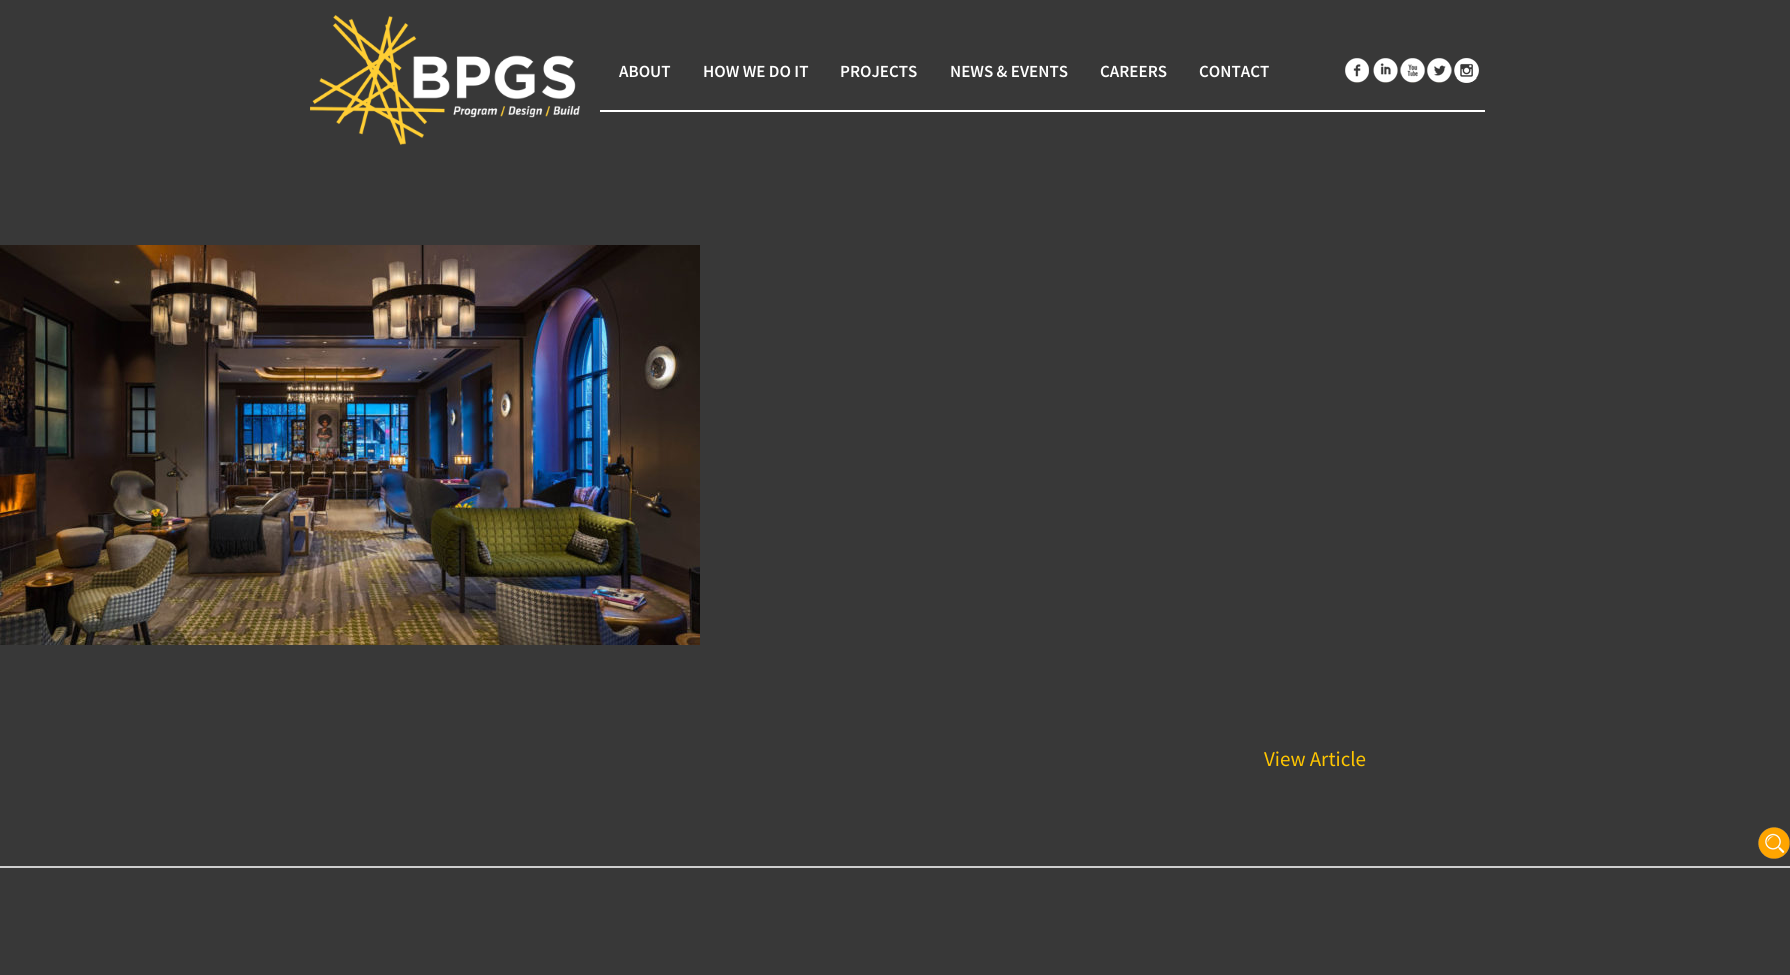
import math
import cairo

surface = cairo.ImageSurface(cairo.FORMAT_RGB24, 1790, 975)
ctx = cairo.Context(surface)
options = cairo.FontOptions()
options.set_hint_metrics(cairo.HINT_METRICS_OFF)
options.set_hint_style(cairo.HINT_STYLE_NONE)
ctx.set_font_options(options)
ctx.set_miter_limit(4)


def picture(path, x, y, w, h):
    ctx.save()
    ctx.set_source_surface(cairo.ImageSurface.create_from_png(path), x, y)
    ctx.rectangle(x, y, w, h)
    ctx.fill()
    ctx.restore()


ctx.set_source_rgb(0.22, 0.22, 0.22)
ctx.paint()
picture("img1.png", 310, 15, 270, 130)
ctx.set_source_rgb(1, 1, 1)
ctx.rectangle(600, 110, 885, 2)
ctx.fill()
ctx.select_font_face("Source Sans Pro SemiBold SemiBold")
ctx.set_font_size(17)
ctx.move_to(619, 77)
ctx.show_text("ABOUT")
ctx.move_to(703, 77)
ctx.show_text("HOW WE DO IT")
ctx.move_to(840, 77)
ctx.show_text("PROJECTS")
ctx.move_to(950, 77)
ctx.show_text("NEWS & EVENTS")
ctx.move_to(1100, 77)
ctx.show_text("CAREERS")
ctx.move_to(1199, 77)
ctx.show_text("CONTACT")
picture("img2.png", 1345, 58, 24, 25)
picture("img3.png", 1373, 58, 25, 25)
picture("img4.png", 1400, 58, 25, 25)
picture("img5.png", 1427, 58, 25, 25)
picture("img6.png", 1454, 58, 25, 25)
picture("img7.png", 0, 245, 700, 400)
ctx.select_font_face("Source Sans Pro")
ctx.set_font_size(21)
ctx.set_source_rgb(1, 0.776, 0)
ctx.move_to(1264, 766)
ctx.show_text("View Article")
picture("img8.png", 1758, 827, 32, 32)
ctx.set_source_rgb(0.808, 0.808, 0.808)
ctx.rectangle(0, 866, 1790, 2)
ctx.fill()
surface.write_to_png("page.png")
